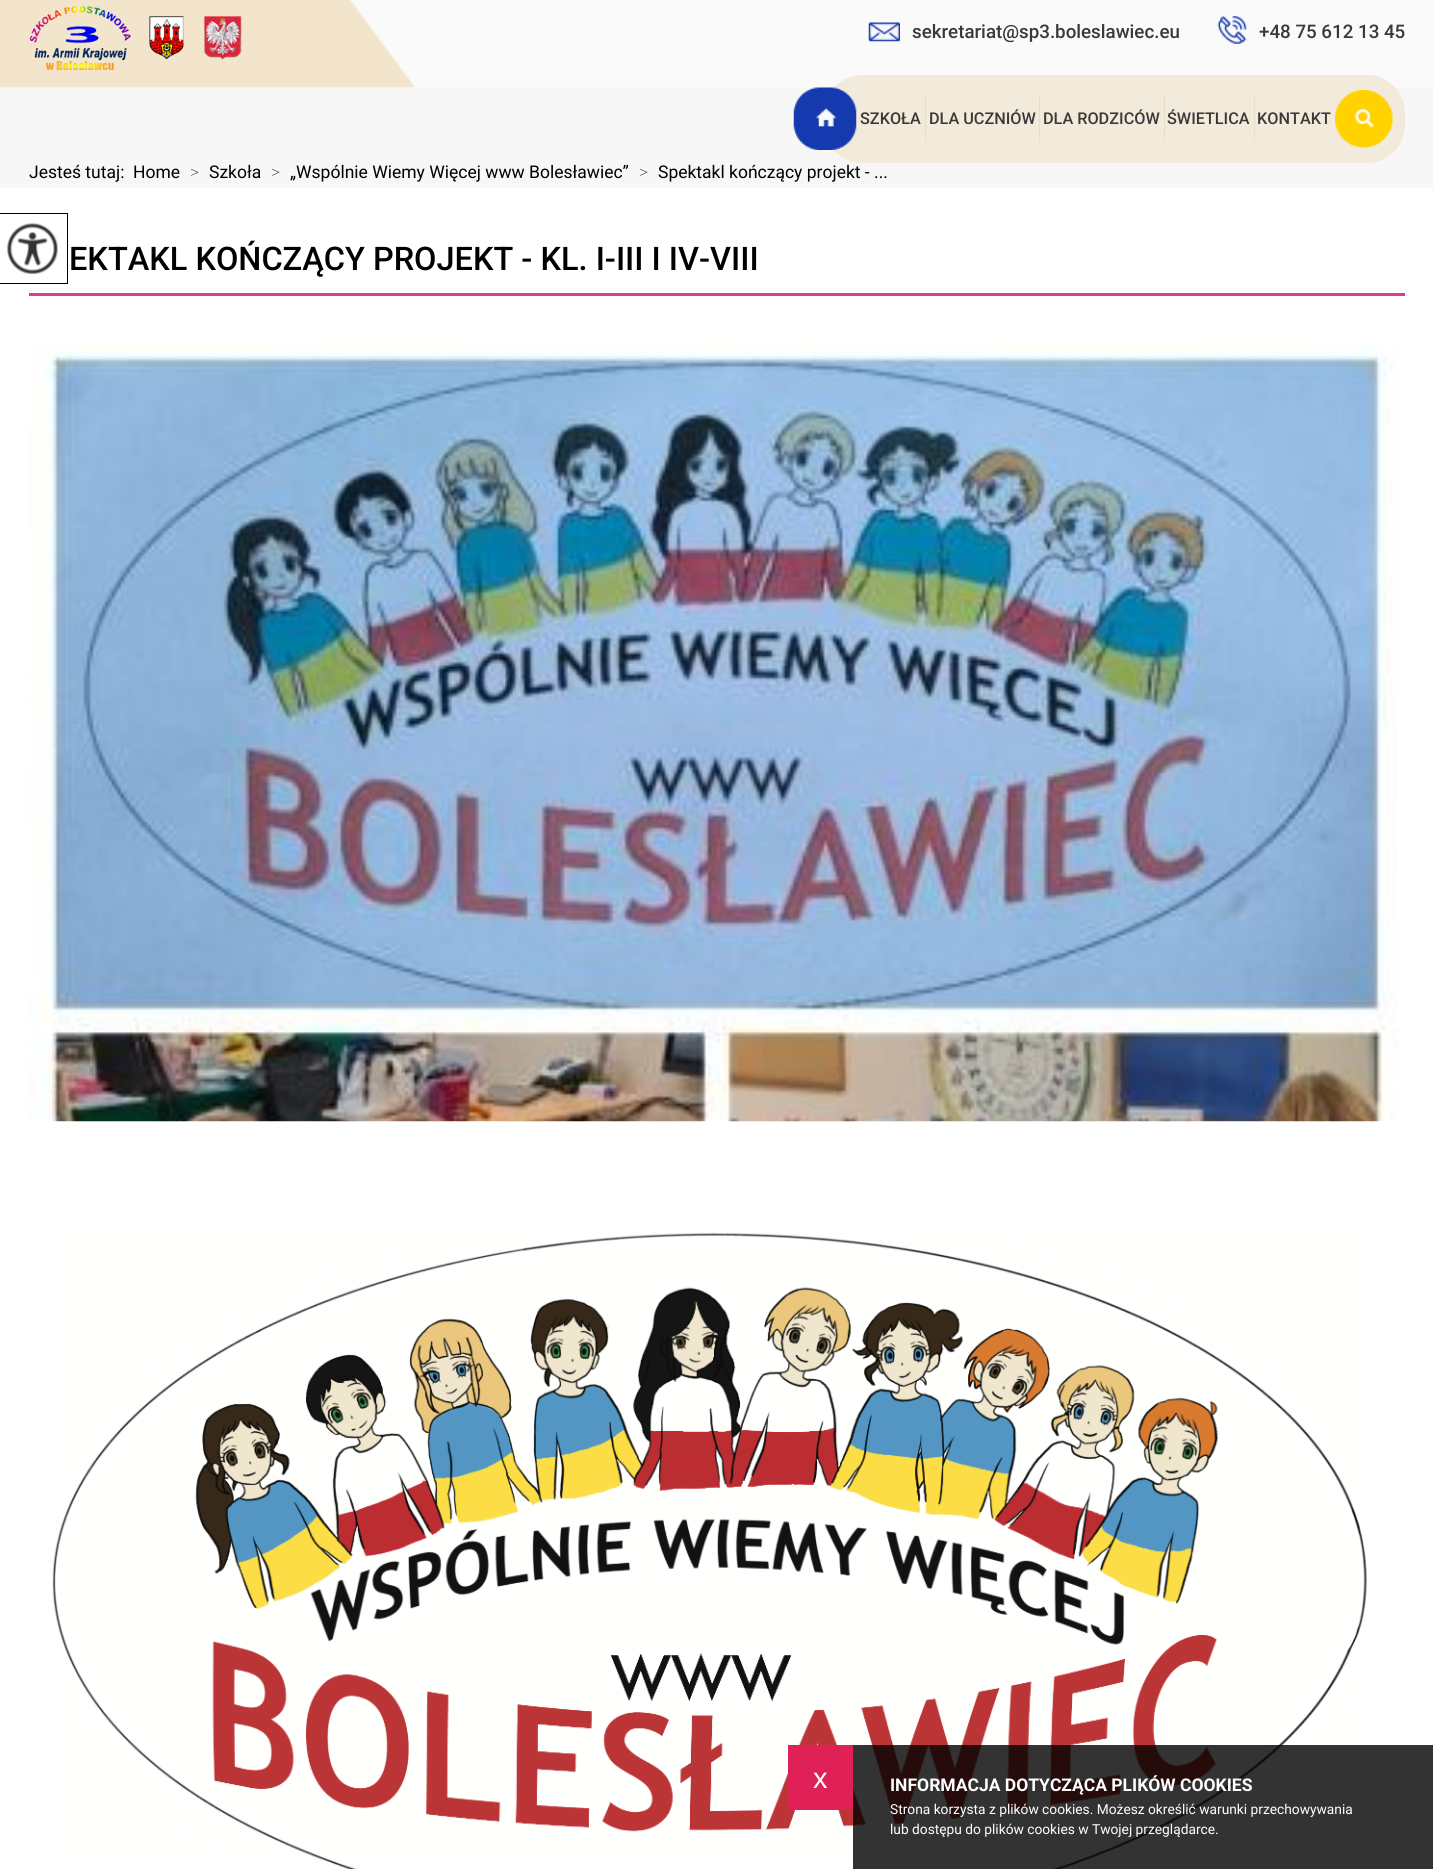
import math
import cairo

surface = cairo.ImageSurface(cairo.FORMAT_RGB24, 1433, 1869)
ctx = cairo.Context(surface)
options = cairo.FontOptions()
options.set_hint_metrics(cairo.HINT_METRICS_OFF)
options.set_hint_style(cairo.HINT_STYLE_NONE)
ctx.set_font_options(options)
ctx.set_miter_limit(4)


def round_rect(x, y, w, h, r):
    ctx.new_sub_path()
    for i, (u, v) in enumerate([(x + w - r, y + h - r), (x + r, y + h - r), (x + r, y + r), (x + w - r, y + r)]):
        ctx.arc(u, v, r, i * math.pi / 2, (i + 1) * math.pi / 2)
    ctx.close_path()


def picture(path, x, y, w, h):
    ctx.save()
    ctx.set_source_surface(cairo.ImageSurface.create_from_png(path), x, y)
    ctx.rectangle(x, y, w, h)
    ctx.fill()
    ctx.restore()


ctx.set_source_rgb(1, 1, 1)
ctx.paint()
picture("img1.png", 0, 0, 1433, 88)
picture("img2.png", 29, 6, 213, 64)
picture("img3.png", 868, 22, 32, 20)
ctx.select_font_face("Roboto Medium")
ctx.set_font_size(18.75)
ctx.set_source_rgb(0.224, 0.224, 0.224)
ctx.move_to(912, 38)
ctx.show_text("sekretariat@sp3.boleslawiec.eu")
picture("img4.png", 1217, 16, 30, 28)
ctx.move_to(1259, 38)
ctx.show_text("+48 75 612 13 45")
ctx.set_source_rgb(0.965, 0.965, 0.965)
ctx.rectangle(0, 88, 1433, 100)
ctx.fill()
ctx.set_source_rgb(0.949, 0.918, 0.859)
round_rect(824, 75, 581, 88, 38)
ctx.fill()
picture("img5.png", 793, 87, 64, 63)
ctx.set_font_size(16.25)
ctx.set_source_rgb(0.224, 0.224, 0.224)
ctx.move_to(860, 124)
ctx.show_text("SZKOŁA")
picture("img6.png", 925, 95, 1, 47)
ctx.move_to(929, 124)
ctx.show_text("DLA UCZNIÓW")
picture("img6.png", 1039, 95, 1, 47)
ctx.move_to(1043, 124)
ctx.show_text("DLA RODZICÓW")
picture("img6.png", 1164, 95, 1, 47)
ctx.move_to(1167, 124)
ctx.show_text("ŚWIETLICA")
picture("img6.png", 1254, 95, 1, 47)
ctx.move_to(1257, 124)
ctx.show_text("KONTAKT")
picture("img7.png", 1335, 90, 58, 58)
ctx.select_font_face("Roboto")
ctx.set_font_size(17.5)
ctx.set_source_rgb(0, 0, 0)
ctx.move_to(29, 178)
ctx.show_text("Jesteś tutaj:")
ctx.move_to(133, 178)
ctx.show_text("Home")
ctx.select_font_face("Roboto Thin")
ctx.move_to(190, 178)
ctx.show_text(">")
ctx.select_font_face("Roboto")
ctx.move_to(209, 178)
ctx.show_text("Szkoła")
ctx.select_font_face("Roboto Thin")
ctx.move_to(271, 178)
ctx.show_text(">")
ctx.select_font_face("Roboto")
ctx.move_to(290, 178)
ctx.show_text("„Wspólnie Wiemy Więcej www Bolesławiec”")
ctx.select_font_face("Roboto Thin")
ctx.move_to(639, 178)
ctx.show_text(">")
ctx.select_font_face("Roboto")
ctx.move_to(658, 178)
ctx.show_text("Spektakl kończący projekt - ...")
ctx.rectangle(-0.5, 213.5, 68, 70)
ctx.set_line_width(1)
ctx.stroke()
picture("img8.png", 7, 223, 51, 51)
ctx.set_source_rgb(0.882, 0.224, 0.557)
ctx.rectangle(29, 293, 1376, 3)
ctx.fill()
ctx.select_font_face("Roboto Medium")
ctx.set_font_size(32.5)
ctx.set_source_rgb(0, 0, 0)
ctx.move_to(69, 270)
ctx.show_text("EKTAKL KOŃCZĄCY PROJEKT - KL. I-III I IV-VIII")
picture("img9.png", 29, 342, 1370, 780)
picture("img10.png", 52, 1232, 1316, 637)
ctx.set_source_rgba(0, 0, 0, 0.8)
ctx.rectangle(853, 1745, 580, 124)
ctx.fill()
ctx.set_source_rgb(0.875, 0.129, 0.341)
ctx.rectangle(788, 1745, 65, 65)
ctx.fill()
ctx.select_font_face("Liberation Sans")
ctx.set_font_size(29)
ctx.set_source_rgb(1, 1, 1)
ctx.move_to(813, 1788)
ctx.show_text("x")
ctx.select_font_face("Roboto", cairo.FONT_SLANT_NORMAL, cairo.FONT_WEIGHT_BOLD)
ctx.set_font_size(17.5)
ctx.move_to(890, 1791)
ctx.show_text("INFORMACJA DOTYCZĄCA PLIKÓW COOKIES")
ctx.select_font_face("Roboto")
ctx.set_font_size(13.75)
ctx.move_to(890, 1814)
ctx.show_text("Strona korzysta z plików cookies. Możesz określić warunki przechowywania")
ctx.move_to(890, 1834)
ctx.show_text("lub dostępu do plików cookies w Twojej przeglądarce.")
surface.write_to_png("page.png")
